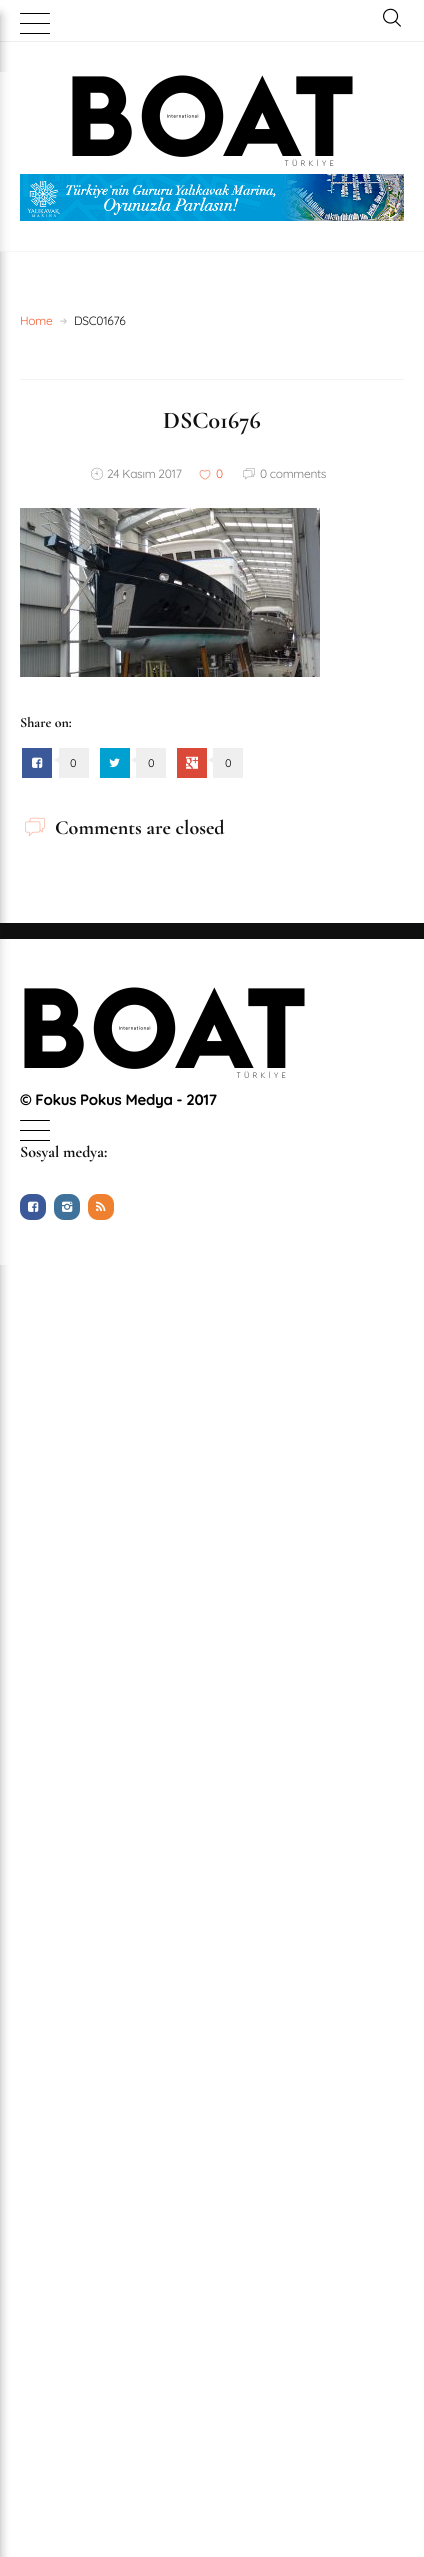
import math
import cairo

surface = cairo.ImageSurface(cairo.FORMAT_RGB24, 424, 2557)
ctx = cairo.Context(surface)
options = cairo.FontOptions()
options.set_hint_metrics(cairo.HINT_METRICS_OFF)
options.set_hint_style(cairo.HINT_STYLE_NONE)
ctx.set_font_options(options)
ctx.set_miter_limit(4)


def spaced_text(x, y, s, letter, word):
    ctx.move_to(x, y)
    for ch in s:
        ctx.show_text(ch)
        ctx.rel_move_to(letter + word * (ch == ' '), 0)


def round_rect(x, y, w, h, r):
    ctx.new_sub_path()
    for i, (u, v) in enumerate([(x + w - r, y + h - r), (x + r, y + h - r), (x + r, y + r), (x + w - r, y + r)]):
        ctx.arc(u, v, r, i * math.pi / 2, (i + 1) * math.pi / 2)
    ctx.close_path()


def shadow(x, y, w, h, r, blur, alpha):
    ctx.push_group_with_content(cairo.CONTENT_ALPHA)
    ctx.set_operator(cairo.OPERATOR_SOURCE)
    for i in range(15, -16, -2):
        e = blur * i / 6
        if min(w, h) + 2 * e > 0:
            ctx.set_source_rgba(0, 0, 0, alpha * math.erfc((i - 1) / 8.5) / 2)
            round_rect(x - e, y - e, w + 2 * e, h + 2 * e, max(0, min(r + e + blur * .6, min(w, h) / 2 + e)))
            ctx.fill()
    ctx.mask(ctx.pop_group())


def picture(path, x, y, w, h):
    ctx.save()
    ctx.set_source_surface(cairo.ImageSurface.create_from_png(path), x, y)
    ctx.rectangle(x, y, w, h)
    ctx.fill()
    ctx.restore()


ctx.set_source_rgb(1, 1, 1)
ctx.paint()
ctx.set_source_rgb(0.933, 0.933, 0.933)
ctx.rectangle(0, 41, 424, 1)
ctx.fill()
ctx.set_source_rgb(0.118, 0.118, 0.118)
shadow(-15, 15, 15, 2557, 0, 5, 0.2)
ctx.set_source_rgb(0, 0, 0)
round_rect(20, 13, 30, 1, 0.5)
ctx.fill()
ctx.rectangle(20, 23, 30, 1)
ctx.fill()
ctx.rectangle(20, 33, 30, 1)
ctx.fill()
picture("img1.png", 383, 8, 18, 19)
ctx.set_source_rgb(1, 1, 1)
ctx.rectangle(0, 72, 8, 179)
ctx.fill()
ctx.set_source_rgb(0.961, 0.961, 0.961)
ctx.rectangle(0, 251, 424, 1)
ctx.fill()
picture("img2.png", 72, 75, 281, 91)
picture("img3.png", 20, 174, 384, 47)
ctx.select_font_face("Quicksand")
ctx.set_font_size(12)
ctx.set_source_rgb(0.949, 0.353, 0.184)
spaced_text(20, 325, "Home", -0.3, 0)
picture("img4.png", 60, 318, 7, 6)
ctx.set_source_rgb(0.067, 0.067, 0.067)
spaced_text(74, 325, "DSC01676", -0.3, 0)
ctx.set_source_rgb(0.957, 0.957, 0.957)
ctx.rectangle(20, 379, 384, 1)
ctx.fill()
ctx.select_font_face("Cormorant Garamond", cairo.FONT_SLANT_NORMAL, cairo.FONT_WEIGHT_BOLD)
ctx.set_font_size(24)
ctx.set_source_rgb(0.067, 0.067, 0.067)
ctx.move_to(163, 428)
ctx.show_text("DSC01676")
picture("img5.png", 91, 467, 12, 13)
ctx.select_font_face("Quicksand")
ctx.set_font_size(12)
ctx.set_source_rgb(0.486, 0.486, 0.486)
spaced_text(107, 478, "24 Kasım 2017", -0.3, 0)
picture("img6.png", 199, 470, 12, 10)
ctx.set_source_rgb(0.949, 0.353, 0.184)
spaced_text(216, 478, "0", -0.3, 0)
picture("img7.png", 243, 468, 12, 12)
ctx.set_source_rgb(0.486, 0.486, 0.486)
spaced_text(260, 478, "0 comments", -0.3, 0)
picture("img8.png", 20, 508, 300, 169)
ctx.select_font_face("Cormorant Garamond", cairo.FONT_SLANT_NORMAL, cairo.FONT_WEIGHT_BOLD)
ctx.set_font_size(14)
ctx.set_source_rgb(0.067, 0.067, 0.067)
ctx.move_to(20, 727)
ctx.show_text("Share on:")
ctx.set_source_rgb(0.231, 0.349, 0.596)
ctx.rectangle(22, 748, 30, 30)
ctx.fill()
picture("img9.png", 32, 757, 11, 11)
ctx.set_source_rgb(0.937, 0.937, 0.937)
ctx.rectangle(59, 748, 30, 30)
ctx.fill()
ctx.new_path()
ctx.move_to(59, 757)
ctx.line_to(59, 763)
ctx.line_to(54, 760)
ctx.close_path()
ctx.fill()
ctx.select_font_face("Quicksand")
ctx.set_font_size(11)
ctx.set_source_rgb(0, 0, 0)
spaced_text(70, 767, "0", -0.3, 0)
ctx.set_source_rgb(0, 0.627, 0.82)
ctx.rectangle(100, 748, 30, 30)
ctx.fill()
picture("img10.png", 109, 758, 11, 10)
ctx.set_source_rgb(0.937, 0.937, 0.937)
ctx.rectangle(136, 748, 30, 30)
ctx.fill()
ctx.new_path()
ctx.move_to(136, 757)
ctx.line_to(136, 763)
ctx.line_to(131, 760)
ctx.close_path()
ctx.fill()
ctx.set_source_rgb(0, 0, 0)
spaced_text(148, 767, "0", -0.3, 0)
ctx.set_source_rgb(0.859, 0.29, 0.224)
ctx.rectangle(177, 748, 30, 30)
ctx.fill()
picture("img11.png", 186, 756, 12, 13)
ctx.set_source_rgb(0.937, 0.937, 0.937)
ctx.rectangle(213, 748, 30, 30)
ctx.fill()
ctx.new_path()
ctx.move_to(213, 757)
ctx.line_to(213, 763)
ctx.line_to(208, 760)
ctx.close_path()
ctx.fill()
ctx.set_source_rgb(0, 0, 0)
spaced_text(225, 767, "0", -0.3, 0)
picture("img12.png", 25, 817, 20, 20)
ctx.select_font_face("Cormorant Garamond", cairo.FONT_SLANT_NORMAL, cairo.FONT_WEIGHT_BOLD)
ctx.set_font_size(20)
ctx.set_source_rgb(0.067, 0.067, 0.067)
ctx.move_to(55, 834)
ctx.show_text("Comments are closed")
ctx.set_source_rgb(0.059, 0.059, 0.059)
ctx.rectangle(0, 923, 424, 16)
ctx.fill()
ctx.set_source_rgb(1, 1, 1)
ctx.rectangle(0, 939, 8, 326)
ctx.fill()
ctx.set_source_rgb(0.118, 0.118, 0.118)
shadow(-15, 15, 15, 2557, 0, 5, 0.2)
ctx.set_source_rgb(0, 0, 0)
round_rect(20, 1120, 30, 1, 0.5)
ctx.fill()
ctx.rectangle(20, 1130, 30, 1)
ctx.fill()
ctx.rectangle(20, 1140, 30, 1)
ctx.fill()
picture("img2.png", 24, 987, 281, 91)
ctx.select_font_face("Quicksand", cairo.FONT_SLANT_NORMAL, cairo.FONT_WEIGHT_BOLD)
ctx.set_font_size(15)
spaced_text(20, 1105, "© Fokus Pokus Medya - 2017", -0.3, 0)
ctx.select_font_face("Cormorant Garamond", cairo.FONT_SLANT_NORMAL, cairo.FONT_WEIGHT_BOLD)
ctx.set_font_size(16)
ctx.set_source_rgb(0.067, 0.067, 0.067)
ctx.move_to(20, 1157)
ctx.show_text("Sosyal medya:")
ctx.set_source_rgb(0.231, 0.349, 0.596)
round_rect(20, 1194, 26, 26, 10)
ctx.fill()
picture("img9.png", 28, 1201, 11, 11)
ctx.set_source_rgb(0.247, 0.447, 0.608)
round_rect(54, 1194, 26, 26, 10)
ctx.fill()
picture("img13.png", 62, 1201, 11, 11)
ctx.set_source_rgb(0.933, 0.502, 0.184)
round_rect(88, 1194, 26, 26, 10)
ctx.fill()
picture("img14.png", 96, 1201, 10, 11)
surface.write_to_png("page.png")
